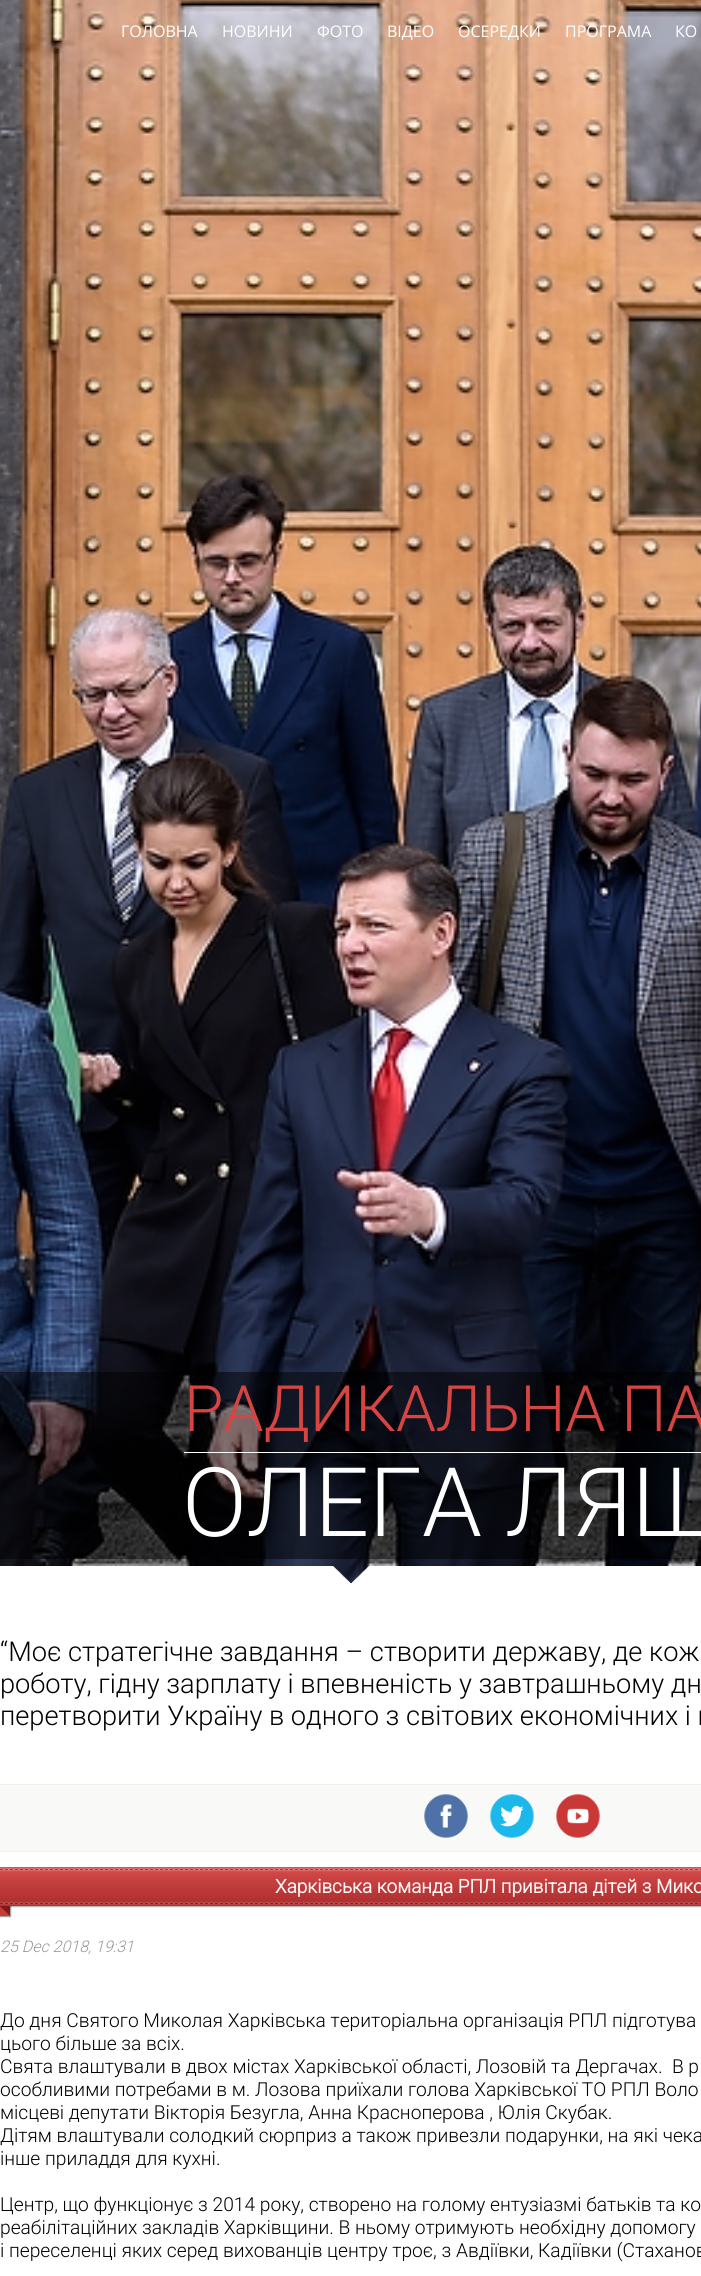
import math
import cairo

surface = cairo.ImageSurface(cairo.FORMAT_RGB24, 701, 2276)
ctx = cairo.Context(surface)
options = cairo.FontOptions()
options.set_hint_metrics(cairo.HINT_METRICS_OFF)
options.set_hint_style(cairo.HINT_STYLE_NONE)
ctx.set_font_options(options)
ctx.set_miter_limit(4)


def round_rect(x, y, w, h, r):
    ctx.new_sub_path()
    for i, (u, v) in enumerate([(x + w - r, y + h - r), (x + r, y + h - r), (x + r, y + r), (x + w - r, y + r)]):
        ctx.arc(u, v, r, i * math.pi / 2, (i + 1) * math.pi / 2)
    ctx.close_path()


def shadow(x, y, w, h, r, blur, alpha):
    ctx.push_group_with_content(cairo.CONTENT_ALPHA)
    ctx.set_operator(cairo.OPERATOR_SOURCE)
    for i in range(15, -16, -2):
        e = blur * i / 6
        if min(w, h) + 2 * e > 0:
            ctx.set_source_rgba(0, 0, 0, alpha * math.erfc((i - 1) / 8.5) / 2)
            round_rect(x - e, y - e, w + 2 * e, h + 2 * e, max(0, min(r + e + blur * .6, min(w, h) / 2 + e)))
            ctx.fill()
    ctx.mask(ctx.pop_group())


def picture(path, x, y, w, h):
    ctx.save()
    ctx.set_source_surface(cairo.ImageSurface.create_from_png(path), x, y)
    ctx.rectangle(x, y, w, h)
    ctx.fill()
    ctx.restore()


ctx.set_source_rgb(1, 1, 1)
ctx.paint()
picture("img1.png", 0, 0, 701, 1584)
ctx.select_font_face("Open Sans")
ctx.set_font_size(16)
ctx.set_source_rgb(1, 1, 1)
ctx.move_to(121, 37)
ctx.show_text("ГОЛОВНА")
ctx.move_to(222, 37)
ctx.show_text("НОВИНИ")
ctx.move_to(317, 37)
ctx.show_text("ФОТО")
ctx.move_to(387, 37)
ctx.show_text("ВІДЕО")
ctx.move_to(458, 37)
ctx.show_text("ОСЕРЕДКИ")
ctx.move_to(565, 37)
ctx.show_text("ПРОГРАМА")
ctx.move_to(675, 37)
ctx.show_text("КО")
ctx.set_source_rgba(0, 0, 0, 0.5)
ctx.rectangle(0, 1372, 701, 187)
ctx.fill()
ctx.select_font_face("Roboto Light")
ctx.set_font_size(64)
ctx.set_source_rgb(0.839, 0.271, 0.255)
ctx.move_to(184, 1431)
ctx.show_text("РАДИКАЛЬНА ПА")
ctx.set_source_rgb(1, 1, 1)
ctx.rectangle(184, 1452, 517, 1)
ctx.fill()
ctx.set_font_size(96)
ctx.move_to(182, 1536)
ctx.show_text("ОЛЕГА ЛЯШ")
ctx.rectangle(0, 1566, 333, 18)
ctx.fill()
picture("img2.png", 333, 1566, 36, 18)
ctx.rectangle(369, 1566, 332, 18)
ctx.fill()
ctx.set_font_size(27.2)
ctx.set_source_rgb(0, 0, 0)
ctx.move_to(0, 1661)
ctx.show_text("“Моє стратегічне завдання – створити державу, де кож")
ctx.move_to(0, 1693)
ctx.show_text("роботу, гідну зарплату і впевненість у завтрашньому дн")
ctx.move_to(0, 1725)
ctx.show_text("перетворити Україну в одного з світових економічних і г")
ctx.set_source_rgb(0.976, 0.973, 0.969)
ctx.rectangle(0, 1785, 701, 66)
ctx.fill()
ctx.set_source_rgb(0.949, 0.941, 0.933)
ctx.rectangle(0, 1784, 701, 1)
ctx.fill()
ctx.rectangle(0, 1851, 701, 1)
ctx.fill()
picture("img3.png", 424, 1794, 44, 44)
picture("img4.png", 490, 1794, 44, 44)
picture("img5.png", 556, 1794, 44, 44)
ctx.set_source_rgb(0, 0, 0)
shadow(-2, 1887, 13, 30, 0, 0.5, 0.4)
ctx.set_source_rgb(0.761, 0.227, 0.227)
ctx.rectangle(0, 1906, 10, 10)
ctx.fill()
ctx.set_source_rgb(0, 0, 0)
shadow(0, 1868, 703, 39, 0, 0.5, 0.3)
gradient = cairo.LinearGradient(512, 1867, 512, 1906)
gradient.add_color_stop_rgba(0, 0.839, 0.294, 0.294, 1)
gradient.add_color_stop_rgba(1, 0.671, 0.173, 0.173, 1)
ctx.set_source(gradient)
ctx.rectangle(0, 1867, 701, 39)
ctx.fill()
ctx.set_source_rgb(1, 1, 1)
shadow(0, 1869, 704, 1, 0, 1, 0.5)
ctx.new_path()
ctx.move_to(0, 1869.5)
ctx.line_to(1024, 1869.5)
ctx.set_source_rgb(0.663, 0.227, 0.227)
ctx.set_line_width(1)
ctx.set_dash([3, 2])
ctx.stroke()
ctx.select_font_face("Roboto", cairo.FONT_SLANT_NORMAL, cairo.FONT_WEIGHT_BOLD)
ctx.set_font_size(19)
ctx.set_source_rgb(0.961, 0.961, 0.961)
ctx.move_to(275, 1893)
ctx.show_text("Харківська команда РПЛ привітала дітей з Мико")
ctx.set_source_rgb(1, 1, 1)
shadow(0, 1903, 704, 1, 0, 1, 0.3)
ctx.set_source_rgb(0.529, 0.086, 0.086)
ctx.new_path()
ctx.move_to(0, 1906)
ctx.line_to(10, 1906)
ctx.line_to(10, 1916)
ctx.close_path()
ctx.fill()
ctx.new_path()
ctx.move_to(0, 1903.5)
ctx.line_to(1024, 1903.5)
ctx.set_source_rgb(0.545, 0.145, 0.145)
ctx.stroke()
ctx.select_font_face("Roboto Light", cairo.FONT_SLANT_ITALIC)
ctx.set_font_size(16)
ctx.set_source_rgb(0.6, 0.6, 0.6)
ctx.move_to(0, 1952)
ctx.show_text("25 Dec 2018, 19:31")
ctx.select_font_face("Roboto Light")
ctx.set_font_size(19.2)
ctx.set_source_rgb(0, 0, 0)
ctx.move_to(0, 2027)
ctx.show_text("До дня Святого Миколая Харківська територіальна організація РПЛ підготува")
ctx.move_to(0, 2050)
ctx.show_text("цього більше за всіх.")
ctx.move_to(0, 2073)
ctx.show_text("Свята влаштували в двох містах Харківської області, Лозовій та Дергачах.  В р")
ctx.move_to(0, 2096)
ctx.show_text("особливими потребами в м. Лозова приїхали голова Харківської ТО РПЛ Воло")
ctx.move_to(0, 2119)
ctx.show_text("місцеві депутати Вікторія Безугла, Анна Красноперова , Юлія Скубак.")
ctx.move_to(0, 2142)
ctx.show_text("Дітям влаштували солодкий сюрприз а також привезли подарунки, на які чека")
ctx.move_to(0, 2165)
ctx.show_text("інше приладдя для кухні.")
ctx.move_to(0, 2211)
ctx.show_text("Центр, що функціонує з 2014 року, створено на голому ентузіазмі батьків та ко")
ctx.move_to(0, 2234)
ctx.show_text("реабілітаційних закладів Харківщини. В ньому отримують необхідну допомогу")
ctx.move_to(0, 2257)
ctx.show_text("і переселенці яких серед вихованців центру троє, з Авдіївки, Кадіївки (Стаханов")
surface.write_to_png("page.png")
